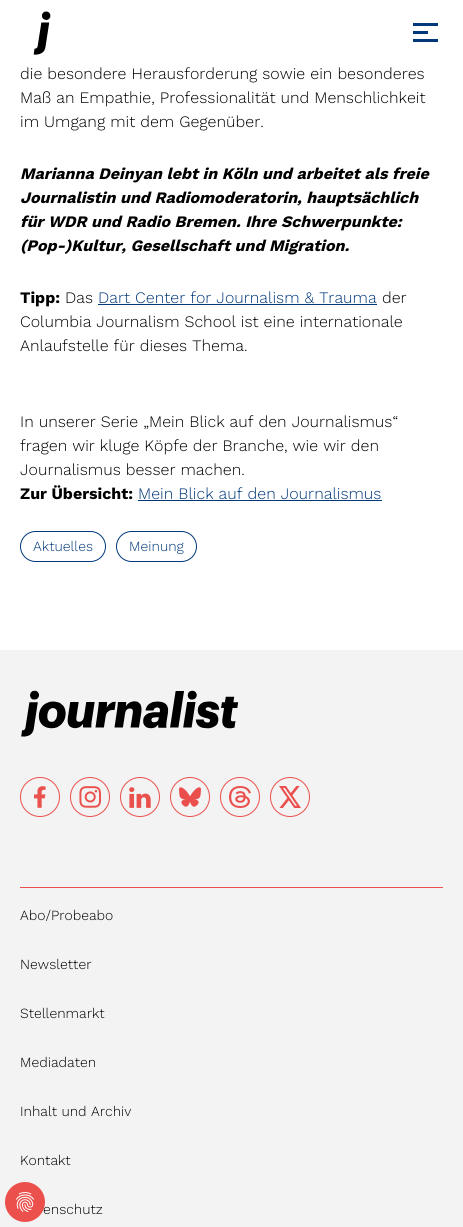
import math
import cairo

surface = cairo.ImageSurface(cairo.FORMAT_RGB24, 463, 1227)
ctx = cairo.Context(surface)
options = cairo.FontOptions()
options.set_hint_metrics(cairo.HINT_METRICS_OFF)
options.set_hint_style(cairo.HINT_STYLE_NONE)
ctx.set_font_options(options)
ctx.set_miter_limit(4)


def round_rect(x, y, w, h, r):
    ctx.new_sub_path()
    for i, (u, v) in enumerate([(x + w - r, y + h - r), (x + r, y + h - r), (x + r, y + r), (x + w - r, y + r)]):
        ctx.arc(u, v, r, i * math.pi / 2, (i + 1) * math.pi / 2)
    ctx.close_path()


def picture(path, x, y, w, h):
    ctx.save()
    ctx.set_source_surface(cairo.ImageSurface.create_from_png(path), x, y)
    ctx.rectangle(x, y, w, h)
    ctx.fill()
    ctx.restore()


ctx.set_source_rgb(1, 1, 1)
ctx.paint()
picture("img1.png", 33, 11, 18, 44)
ctx.set_source_rgb(0.004, 0.22, 0.475)
ctx.rectangle(413, 23, 25, 3)
ctx.fill()
ctx.rectangle(413, 31, 15, 3)
ctx.fill()
ctx.rectangle(413, 39, 25, 3)
ctx.fill()
ctx.select_font_face("Work Sans Light")
ctx.set_font_size(16)
ctx.set_source_rgb(0, 0, 0)
ctx.move_to(20, 79)
ctx.show_text("die besondere Herausforderung sowie ein besonderes")
ctx.move_to(20, 103)
ctx.show_text("Maß an Empathie, Professionalität und Menschlichkeit")
ctx.move_to(20, 127)
ctx.show_text("im Umgang mit dem Gegenüber.")
ctx.select_font_face("Work Sans", cairo.FONT_SLANT_ITALIC, cairo.FONT_WEIGHT_BOLD)
ctx.move_to(20, 179)
ctx.show_text("Marianna Deinyan lebt in Köln und arbeitet als freie")
ctx.move_to(20, 203)
ctx.show_text("Journalistin und Radiomoderatorin, hauptsächlich")
ctx.move_to(20, 227)
ctx.show_text("für WDR und Radio Bremen. Ihre Schwerpunkte:")
ctx.move_to(20, 251)
ctx.show_text("(Pop-)Kultur, Gesellschaft und Migration.")
ctx.select_font_face("Work Sans", cairo.FONT_SLANT_NORMAL, cairo.FONT_WEIGHT_BOLD)
ctx.move_to(20, 303)
ctx.show_text("Tipp:")
ctx.select_font_face("Work Sans Light")
ctx.move_to(65, 303)
ctx.show_text("Das")
ctx.set_source_rgb(0.004, 0.22, 0.475)
ctx.move_to(98, 303)
ctx.show_text("Dart Center for Journalism & Trauma")
ctx.rectangle(98, 304, 279, 1)
ctx.fill()
ctx.set_source_rgb(0, 0, 0)
ctx.move_to(382, 303)
ctx.show_text("der")
ctx.move_to(20, 327)
ctx.show_text("Columbia Journalism School ist eine internationale")
ctx.move_to(20, 351)
ctx.show_text("Anlaufstelle für dieses Thema.")
ctx.move_to(20, 427)
ctx.show_text("In unserer Serie „Mein Blick auf den Journalismus“")
ctx.move_to(20, 451)
ctx.show_text("fragen wir kluge Köpfe der Branche, wie wir den")
ctx.move_to(20, 475)
ctx.show_text("Journalismus besser machen.")
ctx.select_font_face("Work Sans", cairo.FONT_SLANT_NORMAL, cairo.FONT_WEIGHT_BOLD)
ctx.move_to(20, 499)
ctx.show_text("Zur Übersicht:")
ctx.select_font_face("Work Sans Light")
ctx.set_source_rgb(0.004, 0.22, 0.475)
ctx.move_to(138, 499)
ctx.show_text("Mein Blick auf den Journalismus")
ctx.rectangle(138, 500, 244, 1)
ctx.fill()
round_rect(20.5, 531.5, 85, 30, 15)
ctx.set_line_width(1)
ctx.stroke()
ctx.set_font_size(14)
ctx.move_to(33, 551)
ctx.show_text("Aktuelles")
round_rect(116.5, 531.5, 80, 30, 15)
ctx.stroke()
ctx.move_to(129, 551)
ctx.show_text("Meinung")
ctx.set_source_rgb(0.953, 0.953, 0.953)
ctx.rectangle(0, 650, 463, 577)
ctx.fill()
picture("img2.png", 21, 690, 218, 47)
ctx.arc(40, 797, 19.5, 0, 2 * math.pi)
ctx.set_source_rgb(0.918, 0.314, 0.298)
ctx.stroke()
picture("img3.png", 34, 786, 12, 22)
ctx.arc(90, 797, 19.5, 0, 2 * math.pi)
ctx.stroke()
picture("img4.png", 79, 786, 22, 22)
ctx.arc(140, 797, 19.5, 0, 2 * math.pi)
ctx.stroke()
picture("img5.png", 129, 787, 22, 21)
ctx.arc(190, 797, 19.5, 0, 2 * math.pi)
ctx.stroke()
picture("img6.png", 179, 787, 22, 20)
ctx.arc(240, 797, 19.5, 0, 2 * math.pi)
ctx.stroke()
picture("img7.png", 229, 786, 22, 22)
ctx.arc(290, 797, 19.5, 0, 2 * math.pi)
ctx.stroke()
picture("img8.png", 279, 786, 22, 22)
ctx.rectangle(20, 887, 423, 1)
ctx.fill()
ctx.set_source_rgb(0, 0, 0)
ctx.move_to(20, 920)
ctx.show_text("Abo/Probeabo")
ctx.move_to(20, 969)
ctx.show_text("Newsletter")
ctx.move_to(20, 1018)
ctx.show_text("Stellenmarkt")
ctx.move_to(20, 1067)
ctx.show_text("Mediadaten")
ctx.move_to(20, 1116)
ctx.show_text("Inhalt und Archiv")
ctx.move_to(20, 1165)
ctx.show_text("Kontakt")
ctx.move_to(43, 1214)
ctx.show_text("enschutz")
ctx.set_source_rgb(0.918, 0.314, 0.298)
ctx.new_path()
ctx.arc(25, 1202, 20, 0, 2 * math.pi)
ctx.fill()
picture("img9.png", 16, 1192, 18, 20)
surface.write_to_png("page.png")
